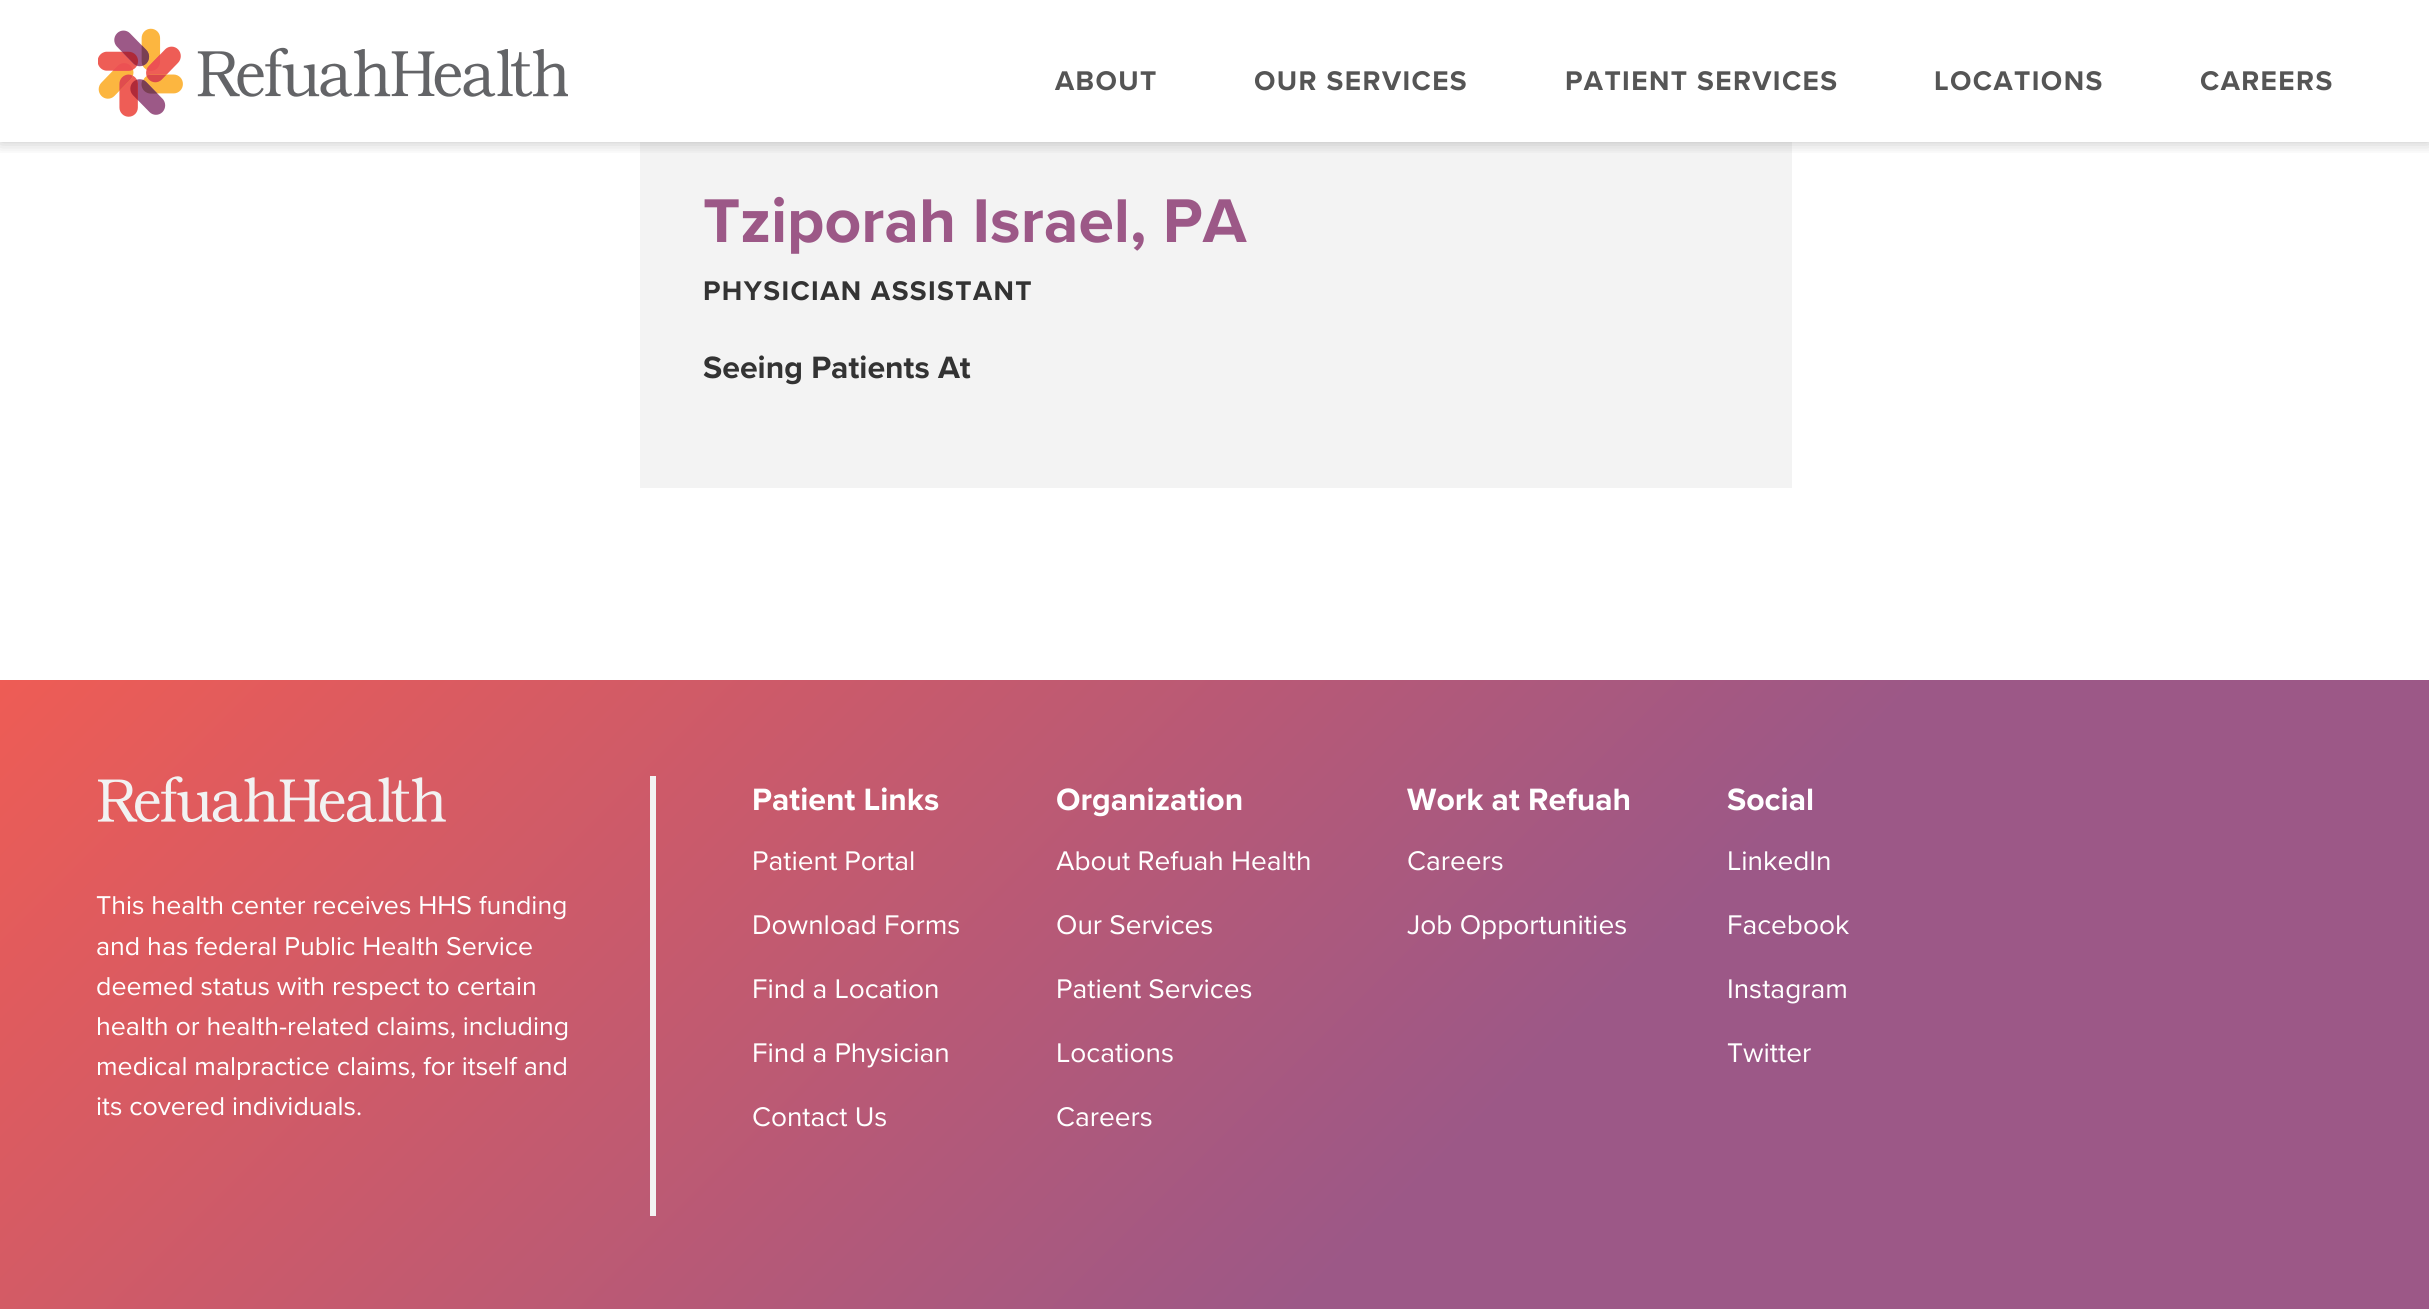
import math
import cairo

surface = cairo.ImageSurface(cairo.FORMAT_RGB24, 2429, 1309)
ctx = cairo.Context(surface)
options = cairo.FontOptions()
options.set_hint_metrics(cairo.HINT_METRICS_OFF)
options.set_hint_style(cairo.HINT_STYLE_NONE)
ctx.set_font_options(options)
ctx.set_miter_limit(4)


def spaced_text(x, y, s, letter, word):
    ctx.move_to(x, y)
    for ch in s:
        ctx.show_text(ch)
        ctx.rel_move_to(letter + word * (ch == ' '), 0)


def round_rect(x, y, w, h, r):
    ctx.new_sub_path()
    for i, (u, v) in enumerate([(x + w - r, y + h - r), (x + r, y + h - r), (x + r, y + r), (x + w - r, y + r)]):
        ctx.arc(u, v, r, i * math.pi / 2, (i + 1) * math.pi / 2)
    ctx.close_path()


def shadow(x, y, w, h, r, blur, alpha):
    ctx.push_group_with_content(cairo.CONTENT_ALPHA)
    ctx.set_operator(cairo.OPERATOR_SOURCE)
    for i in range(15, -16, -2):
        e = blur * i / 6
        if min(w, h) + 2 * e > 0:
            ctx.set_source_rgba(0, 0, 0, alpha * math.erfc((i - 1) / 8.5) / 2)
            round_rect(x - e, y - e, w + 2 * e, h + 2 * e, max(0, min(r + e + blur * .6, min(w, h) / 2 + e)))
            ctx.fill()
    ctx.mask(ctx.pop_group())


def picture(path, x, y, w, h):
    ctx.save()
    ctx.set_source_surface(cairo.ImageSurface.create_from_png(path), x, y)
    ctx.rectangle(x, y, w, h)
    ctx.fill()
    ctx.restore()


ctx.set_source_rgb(1, 1, 1)
ctx.paint()
ctx.set_source_rgb(0.953, 0.953, 0.953)
ctx.rectangle(640, 142, 1152, 346)
ctx.fill()
ctx.save()
ctx.rectangle(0, 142, 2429, 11)
ctx.clip()
ctx.set_source_rgb(0, 0, 0)
shadow(0, -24, 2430, 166, 0, 8, 0.25)
ctx.restore()
picture("img1.png", 98, 28, 470, 89)
ctx.select_font_face("Proxima Nova", cairo.FONT_SLANT_NORMAL, cairo.FONT_WEIGHT_BOLD)
ctx.set_font_size(28)
ctx.set_source_rgb(0.333, 0.333, 0.333)
spaced_text(1055, 90, "ABOUT", 1.4, 0)
spaced_text(1254, 90, "OUR SERVICES", 1.4, 0)
spaced_text(1565, 90, "PATIENT SERVICES", 1.4, 0)
spaced_text(1934, 90, "LOCATIONS", 1.4, 0)
spaced_text(2200, 90, "CAREERS", 1.4, 0)
ctx.set_font_size(64)
ctx.set_source_rgb(0.612, 0.345, 0.529)
ctx.move_to(703, 242)
ctx.show_text("Tziporah Israel, PA")
ctx.set_font_size(28)
ctx.set_source_rgb(0.2, 0.2, 0.2)
spaced_text(703, 300, "PHYSICIAN ASSISTANT", 1.4, 0)
ctx.set_font_size(32)
ctx.move_to(703, 378)
ctx.show_text("Seeing Patients At")
gradient = cairo.LinearGradient(413, 267, 2017, 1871)
gradient.add_color_stop_rgba(0, 0.933, 0.361, 0.333, 1)
gradient.add_color_stop_rgba(0.6, 0.612, 0.345, 0.529, 1)
ctx.set_source(gradient)
ctx.rectangle(0, 680, 2429, 629)
ctx.fill()
ctx.set_source_rgb(0.953, 0.953, 0.953)
ctx.rectangle(650, 776, 6, 440)
ctx.fill()
picture("img2.png", 98, 776, 348, 46)
ctx.select_font_face("Proxima Nova")
ctx.set_font_size(26.75)
ctx.set_source_rgb(1, 1, 1)
ctx.move_to(96, 914)
ctx.show_text("This health center receives HHS funding")
ctx.move_to(96, 955)
ctx.show_text("and has federal Public Health Service")
ctx.move_to(96, 995)
ctx.show_text("deemed status with respect to certain")
ctx.move_to(96, 1035)
ctx.show_text("health or health-related claims, including")
ctx.move_to(96, 1075)
ctx.show_text("medical malpractice claims, for itself and")
ctx.move_to(96, 1115)
ctx.show_text("its covered individuals.")
ctx.select_font_face("Proxima Nova", cairo.FONT_SLANT_NORMAL, cairo.FONT_WEIGHT_BOLD)
ctx.set_font_size(32)
ctx.move_to(752, 810)
ctx.show_text("Patient Links")
ctx.select_font_face("Proxima Nova")
ctx.set_font_size(28)
ctx.move_to(752, 870)
ctx.show_text("Patient Portal")
ctx.move_to(752, 934)
ctx.show_text("Download Forms")
ctx.move_to(752, 998)
ctx.show_text("Find a Location")
ctx.move_to(752, 1062)
ctx.show_text("Find a Physician")
ctx.move_to(752, 1126)
ctx.show_text("Contact Us")
ctx.select_font_face("Proxima Nova", cairo.FONT_SLANT_NORMAL, cairo.FONT_WEIGHT_BOLD)
ctx.set_font_size(32)
ctx.move_to(1056, 810)
ctx.show_text("Organization")
ctx.select_font_face("Proxima Nova")
ctx.set_font_size(28)
ctx.move_to(1056, 870)
ctx.show_text("About Refuah Health")
ctx.move_to(1056, 934)
ctx.show_text("Our Services")
ctx.move_to(1056, 998)
ctx.show_text("Patient Services")
ctx.move_to(1056, 1062)
ctx.show_text("Locations")
ctx.move_to(1056, 1126)
ctx.show_text("Careers")
ctx.select_font_face("Proxima Nova", cairo.FONT_SLANT_NORMAL, cairo.FONT_WEIGHT_BOLD)
ctx.set_font_size(32)
ctx.move_to(1407, 810)
ctx.show_text("Work at Refuah")
ctx.select_font_face("Proxima Nova")
ctx.set_font_size(28)
ctx.move_to(1407, 870)
ctx.show_text("Careers")
ctx.move_to(1407, 934)
ctx.show_text("Job Opportunities")
ctx.select_font_face("Proxima Nova", cairo.FONT_SLANT_NORMAL, cairo.FONT_WEIGHT_BOLD)
ctx.set_font_size(32)
ctx.move_to(1727, 810)
ctx.show_text("Social")
ctx.select_font_face("Proxima Nova")
ctx.set_font_size(28)
ctx.move_to(1727, 870)
ctx.show_text("LinkedIn")
ctx.move_to(1727, 934)
ctx.show_text("Facebook")
ctx.move_to(1727, 998)
ctx.show_text("Instagram")
ctx.move_to(1727, 1062)
ctx.show_text("Twitter")
surface.write_to_png("page.png")
